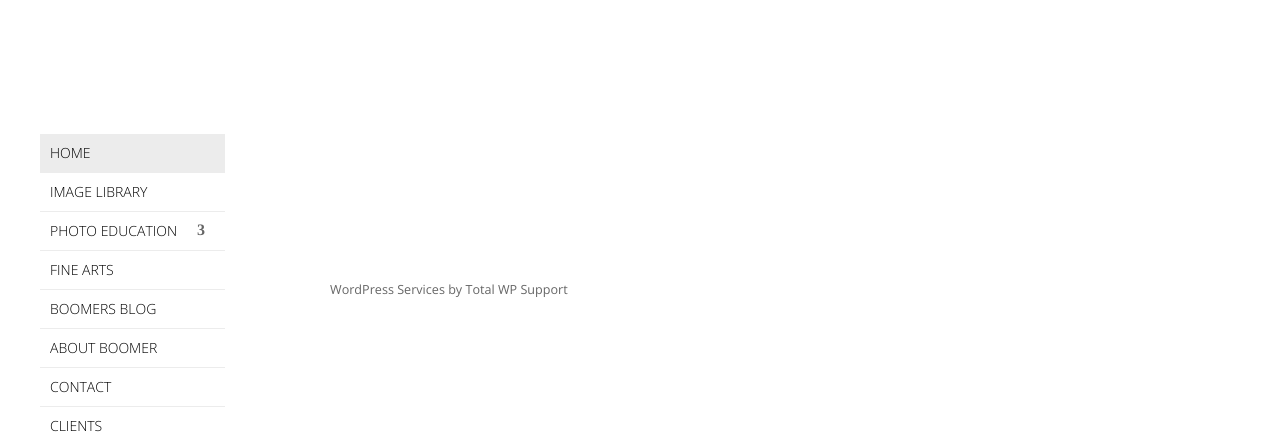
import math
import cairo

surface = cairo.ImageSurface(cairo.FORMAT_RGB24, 1270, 439)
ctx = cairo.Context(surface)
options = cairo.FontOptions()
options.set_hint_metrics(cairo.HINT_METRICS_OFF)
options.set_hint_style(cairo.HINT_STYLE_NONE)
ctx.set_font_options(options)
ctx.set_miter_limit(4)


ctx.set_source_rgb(1, 1, 1)
ctx.paint()
ctx.set_source_rgb(0.922, 0.922, 0.922)
ctx.rectangle(40, 134, 185, 39)
ctx.fill()
ctx.select_font_face("Open Sans Light")
ctx.set_font_size(14)
ctx.set_source_rgb(0, 0, 0)
ctx.move_to(50, 158)
ctx.show_text("HOME")
ctx.set_source_rgb(0.922, 0.922, 0.922)
ctx.rectangle(40, 211, 185, 1)
ctx.fill()
ctx.set_source_rgb(0, 0, 0)
ctx.move_to(50, 197)
ctx.show_text("IMAGE LIBRARY")
ctx.set_source_rgb(0.922, 0.922, 0.922)
ctx.rectangle(40, 250, 185, 1)
ctx.fill()
ctx.set_source_rgb(0, 0, 0)
ctx.move_to(50, 236)
ctx.show_text("PHOTO EDUCATION")
ctx.select_font_face("Liberation Serif", cairo.FONT_SLANT_NORMAL, cairo.FONT_WEIGHT_BOLD)
ctx.set_font_size(16)
ctx.set_source_rgb(0.4, 0.4, 0.4)
ctx.move_to(197, 235)
ctx.show_text("3")
ctx.set_source_rgb(0.922, 0.922, 0.922)
ctx.rectangle(40, 289, 185, 1)
ctx.fill()
ctx.select_font_face("Open Sans Light")
ctx.set_font_size(14)
ctx.set_source_rgb(0, 0, 0)
ctx.move_to(50, 275)
ctx.show_text("FINE ARTS")
ctx.set_source_rgb(0.922, 0.922, 0.922)
ctx.rectangle(40, 328, 185, 1)
ctx.fill()
ctx.set_source_rgb(0, 0, 0)
ctx.move_to(50, 314)
ctx.show_text("BOOMERS BLOG")
ctx.set_source_rgb(0.922, 0.922, 0.922)
ctx.rectangle(40, 367, 185, 1)
ctx.fill()
ctx.set_source_rgb(0, 0, 0)
ctx.move_to(50, 353)
ctx.show_text("ABOUT BOOMER")
ctx.set_source_rgb(0.922, 0.922, 0.922)
ctx.rectangle(40, 406, 185, 1)
ctx.fill()
ctx.set_source_rgb(0, 0, 0)
ctx.move_to(50, 392)
ctx.show_text("CONTACT")
ctx.move_to(50, 431)
ctx.show_text("CLIENTS")
ctx.select_font_face("Open Sans")
ctx.set_font_size(12.6)
ctx.set_source_rgb(0.4, 0.4, 0.4)
ctx.move_to(330, 294)
ctx.show_text("WordPress Services by Total WP Support")
surface.write_to_png("page.png")
